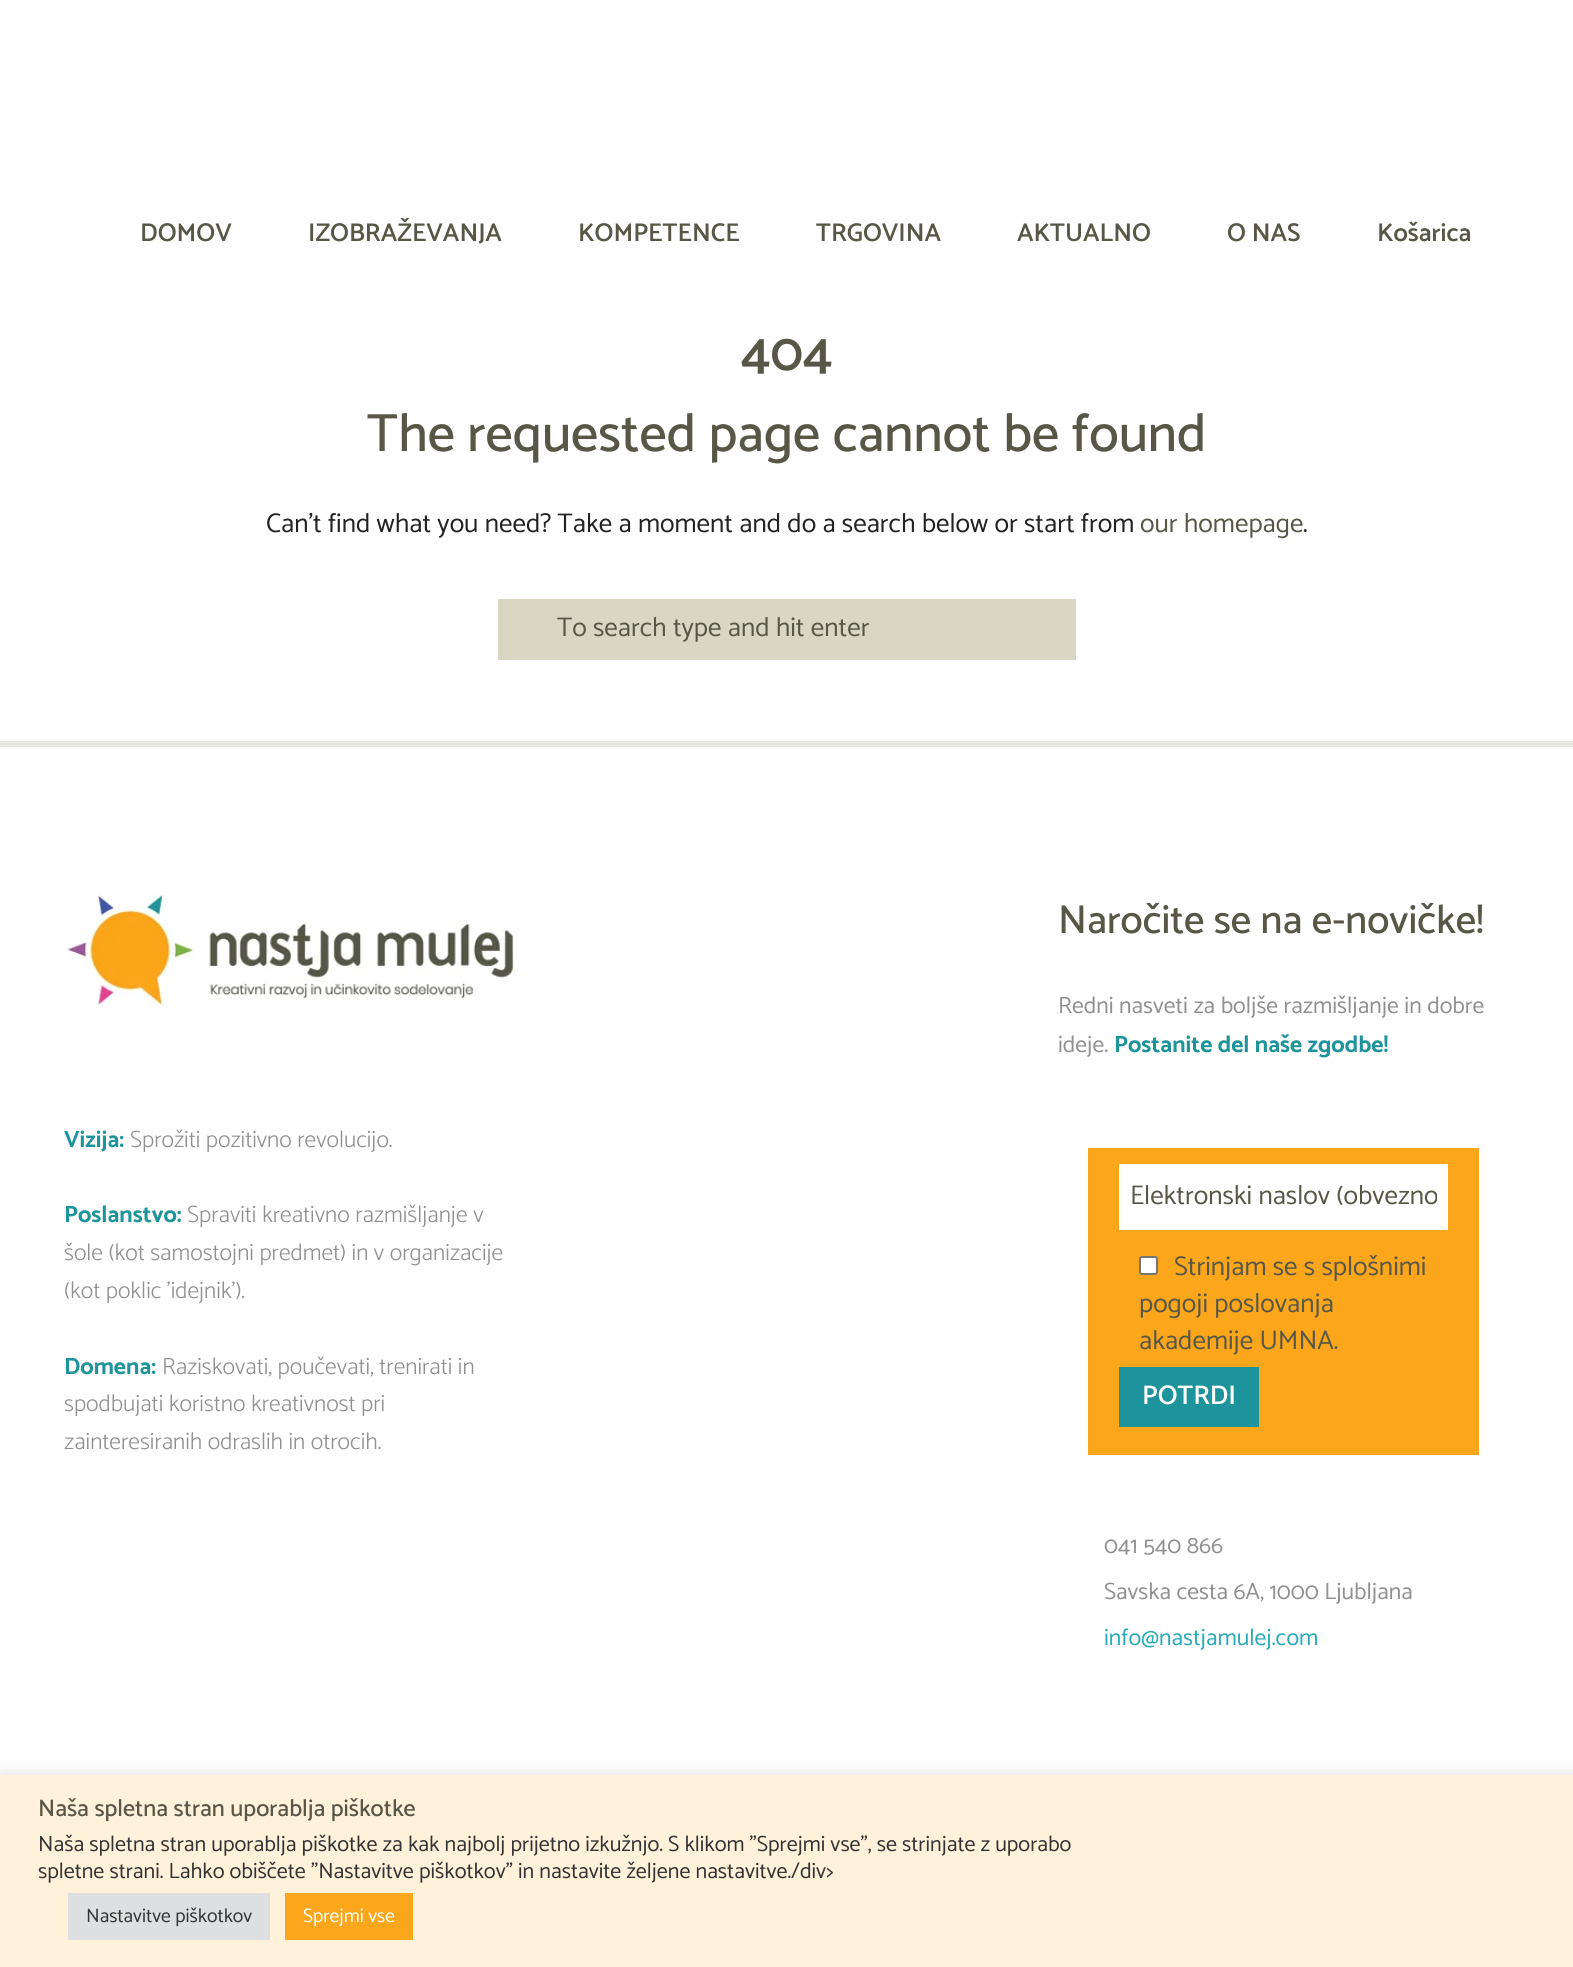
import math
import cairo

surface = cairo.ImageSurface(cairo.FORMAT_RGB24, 1573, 1967)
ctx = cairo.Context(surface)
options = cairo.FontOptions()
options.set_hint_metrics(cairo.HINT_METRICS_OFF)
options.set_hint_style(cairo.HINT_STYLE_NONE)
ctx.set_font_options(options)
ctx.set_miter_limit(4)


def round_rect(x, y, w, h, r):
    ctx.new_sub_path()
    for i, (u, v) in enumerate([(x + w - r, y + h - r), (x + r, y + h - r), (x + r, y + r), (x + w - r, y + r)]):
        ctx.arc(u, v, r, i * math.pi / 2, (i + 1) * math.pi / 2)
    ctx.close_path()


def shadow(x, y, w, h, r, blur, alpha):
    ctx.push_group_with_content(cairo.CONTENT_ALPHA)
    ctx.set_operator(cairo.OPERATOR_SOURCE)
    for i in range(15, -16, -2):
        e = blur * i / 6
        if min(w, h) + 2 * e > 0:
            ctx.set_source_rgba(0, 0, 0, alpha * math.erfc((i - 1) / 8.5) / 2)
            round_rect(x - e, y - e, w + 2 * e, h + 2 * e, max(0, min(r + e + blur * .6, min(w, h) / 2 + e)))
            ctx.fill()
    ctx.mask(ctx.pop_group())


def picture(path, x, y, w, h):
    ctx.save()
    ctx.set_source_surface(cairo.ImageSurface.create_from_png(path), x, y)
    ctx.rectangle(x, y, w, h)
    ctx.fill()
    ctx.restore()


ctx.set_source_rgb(1, 1, 1)
ctx.paint()
ctx.select_font_face("Catamaran SemiBold")
ctx.set_font_size(25.75)
ctx.set_source_rgb(0.345, 0.341, 0.278)
ctx.move_to(140, 241)
ctx.show_text("DOMOV")
ctx.move_to(308, 241)
ctx.show_text("IZOBRAŽEVANJA")
ctx.move_to(578, 241)
ctx.show_text("KOMPETENCE")
ctx.move_to(816, 241)
ctx.show_text("TRGOVINA")
ctx.move_to(1017, 241)
ctx.show_text("AKTUALNO")
ctx.move_to(1227, 241)
ctx.show_text("O NAS")
ctx.move_to(1377, 241)
ctx.show_text("Košarica")
ctx.set_font_size(54)
ctx.move_to(741, 370)
ctx.show_text("404")
ctx.select_font_face("Catamaran Medium")
ctx.move_to(367, 451)
ctx.show_text("The requested page cannot be found")
ctx.select_font_face("Catamaran")
ctx.set_font_size(27)
ctx.set_source_rgb(0.133, 0.133, 0.133)
ctx.move_to(266, 532)
ctx.show_text("Can't find what you need? Take a moment and do a search below or start from")
ctx.set_source_rgb(0.345, 0.341, 0.278)
ctx.move_to(1140, 532)
ctx.show_text("our homepage")
ctx.set_source_rgb(0.133, 0.133, 0.133)
ctx.move_to(1303, 532)
ctx.show_text(".")
ctx.set_source_rgb(0.851, 0.839, 0.765)
ctx.rectangle(498, 599, 578, 61)
ctx.fill()
ctx.set_source_rgb(0.345, 0.341, 0.278)
ctx.move_to(557, 636)
ctx.show_text("To search type and hit enter")
ctx.set_source_rgb(0.906, 0.902, 0.882)
ctx.rectangle(0, 741, 1573, 6)
ctx.fill()
picture("img1.png", 67, 891, 448, 115)
ctx.select_font_face("Catamaran", cairo.FONT_SLANT_NORMAL, cairo.FONT_WEIGHT_BOLD)
ctx.set_font_size(23.6)
ctx.set_source_rgb(0.114, 0.58, 0.608)
ctx.move_to(64, 1147)
ctx.show_text("Vizija:")
ctx.select_font_face("Catamaran Light")
ctx.set_source_rgb(0.561, 0.565, 0.565)
ctx.move_to(130, 1147)
ctx.show_text("Sprožiti pozitivno revolucijo.")
ctx.select_font_face("Catamaran", cairo.FONT_SLANT_NORMAL, cairo.FONT_WEIGHT_BOLD)
ctx.set_source_rgb(0.114, 0.58, 0.608)
ctx.move_to(64, 1222)
ctx.show_text("Poslanstvo:")
ctx.select_font_face("Catamaran Light")
ctx.set_source_rgb(0.561, 0.565, 0.565)
ctx.move_to(187, 1222)
ctx.show_text("Spraviti kreativno razmišljanje v")
ctx.move_to(64, 1260)
ctx.show_text("šole (kot samostojni predmet) in v organizacije")
ctx.move_to(64, 1298)
ctx.show_text("(kot poklic 'idejnik').")
ctx.select_font_face("Catamaran", cairo.FONT_SLANT_NORMAL, cairo.FONT_WEIGHT_BOLD)
ctx.set_source_rgb(0.114, 0.58, 0.608)
ctx.move_to(64, 1374)
ctx.show_text("Domena:")
ctx.select_font_face("Catamaran Light")
ctx.set_source_rgb(0.561, 0.565, 0.565)
ctx.move_to(162, 1374)
ctx.show_text("Raziskovati, poučevati, trenirati in")
ctx.move_to(64, 1411)
ctx.show_text("spodbujati koristno kreativnost pri")
ctx.move_to(64, 1449)
ctx.show_text("zainteresiranih odraslih in otrocih.")
ctx.select_font_face("Catamaran Medium")
ctx.set_font_size(40.5)
ctx.set_source_rgb(0.345, 0.341, 0.278)
ctx.move_to(1058, 933)
ctx.show_text("Naročite se na e-novičke!")
ctx.select_font_face("Catamaran")
ctx.set_font_size(23.6)
ctx.set_source_rgb(0.561, 0.565, 0.565)
ctx.move_to(1058, 1013)
ctx.show_text("Redni nasveti za boljše razmišljanje in dobre")
ctx.move_to(1058, 1052)
ctx.show_text("ideje.")
ctx.select_font_face("Catamaran", cairo.FONT_SLANT_NORMAL, cairo.FONT_WEIGHT_BOLD)
ctx.set_source_rgb(0.114, 0.58, 0.608)
ctx.move_to(1114, 1052)
ctx.show_text("Postanite del naše zgodbe!")
ctx.set_source_rgb(0.988, 0.651, 0.106)
ctx.rectangle(1088, 1148, 391, 307)
ctx.fill()
ctx.set_source_rgb(1, 1, 1)
ctx.rectangle(1119, 1164, 329, 66)
ctx.fill()
ctx.save()
ctx.rectangle(1130, 1175, 307, 45)
ctx.clip()
ctx.select_font_face("Catamaran")
ctx.set_font_size(27)
ctx.set_source_rgb(0.345, 0.341, 0.278)
ctx.move_to(1130, 1204)
ctx.show_text("Elektronski naslov (obvezno")
ctx.restore()
round_rect(1140, 1257, 17, 17, 2)
ctx.fill_preserve()
ctx.set_source_rgb(0.463, 0.463, 0.463)
ctx.stroke()
ctx.select_font_face("Catamaran")
ctx.set_font_size(27)
ctx.set_source_rgb(0.345, 0.341, 0.278)
ctx.move_to(1174, 1275)
ctx.show_text("Strinjam se s splošnimi")
ctx.move_to(1139, 1312)
ctx.show_text("pogoji poslovanja")
ctx.move_to(1139, 1349)
ctx.show_text("akademije UMNA.")
ctx.set_source_rgb(0.114, 0.58, 0.608)
ctx.rectangle(1119, 1367, 140, 60)
ctx.fill()
ctx.select_font_face("Catamaran SemiBold")
ctx.set_source_rgb(1, 1, 1)
ctx.move_to(1142, 1404)
ctx.show_text("POTRDI")
ctx.select_font_face("Catamaran")
ctx.set_font_size(23.6)
ctx.set_source_rgb(0.561, 0.565, 0.565)
ctx.move_to(1104, 1553)
ctx.show_text("041 540 866")
ctx.move_to(1104, 1599)
ctx.show_text("Savska cesta 6A, 1000 Ljubljana")
ctx.set_source_rgb(0.153, 0.671, 0.718)
ctx.move_to(1104, 1645)
ctx.show_text("info@nastjamulej.com")
ctx.set_source_rgb(0.675, 0.671, 0.671)
shadow(0, 1773, 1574, 194, 0, 7.5, 0.3)
ctx.set_source_rgb(1, 0.945, 0.855)
ctx.rectangle(0, 1775, 1573, 192)
ctx.fill()
ctx.select_font_face("Catamaran Medium")
ctx.set_font_size(24)
ctx.set_source_rgb(0.345, 0.341, 0.278)
ctx.move_to(38, 1816)
ctx.show_text("Naša spletna stran uporablja piškotke")
ctx.select_font_face("Catamaran")
ctx.set_font_size(22)
ctx.set_source_rgb(0.2, 0.2, 0.2)
ctx.move_to(38, 1851)
ctx.show_text("Naša spletna stran uporablja piškotke za kak najbolj prijetno izkužnjo. S klikom \"Sprejmi vse\", se strinjate z uporabo")
ctx.move_to(38, 1878)
ctx.show_text("spletne strani. Lahko obiščete \"Nastavitve piškotkov\" in nastavite željene nastavitve./div>")
ctx.set_source_rgb(0.871, 0.875, 0.878)
ctx.rectangle(68, 1893, 202, 47)
ctx.fill()
ctx.set_font_size(19.5)
ctx.set_source_rgb(0.2, 0.2, 0.2)
ctx.move_to(86, 1922)
ctx.show_text("Nastavitve piškotkov")
ctx.set_source_rgb(0.988, 0.651, 0.106)
ctx.rectangle(285, 1893, 128, 47)
ctx.fill()
ctx.set_source_rgb(1, 1, 1)
ctx.move_to(303, 1922)
ctx.show_text("Sprejmi vse")
surface.write_to_png("page.png")
